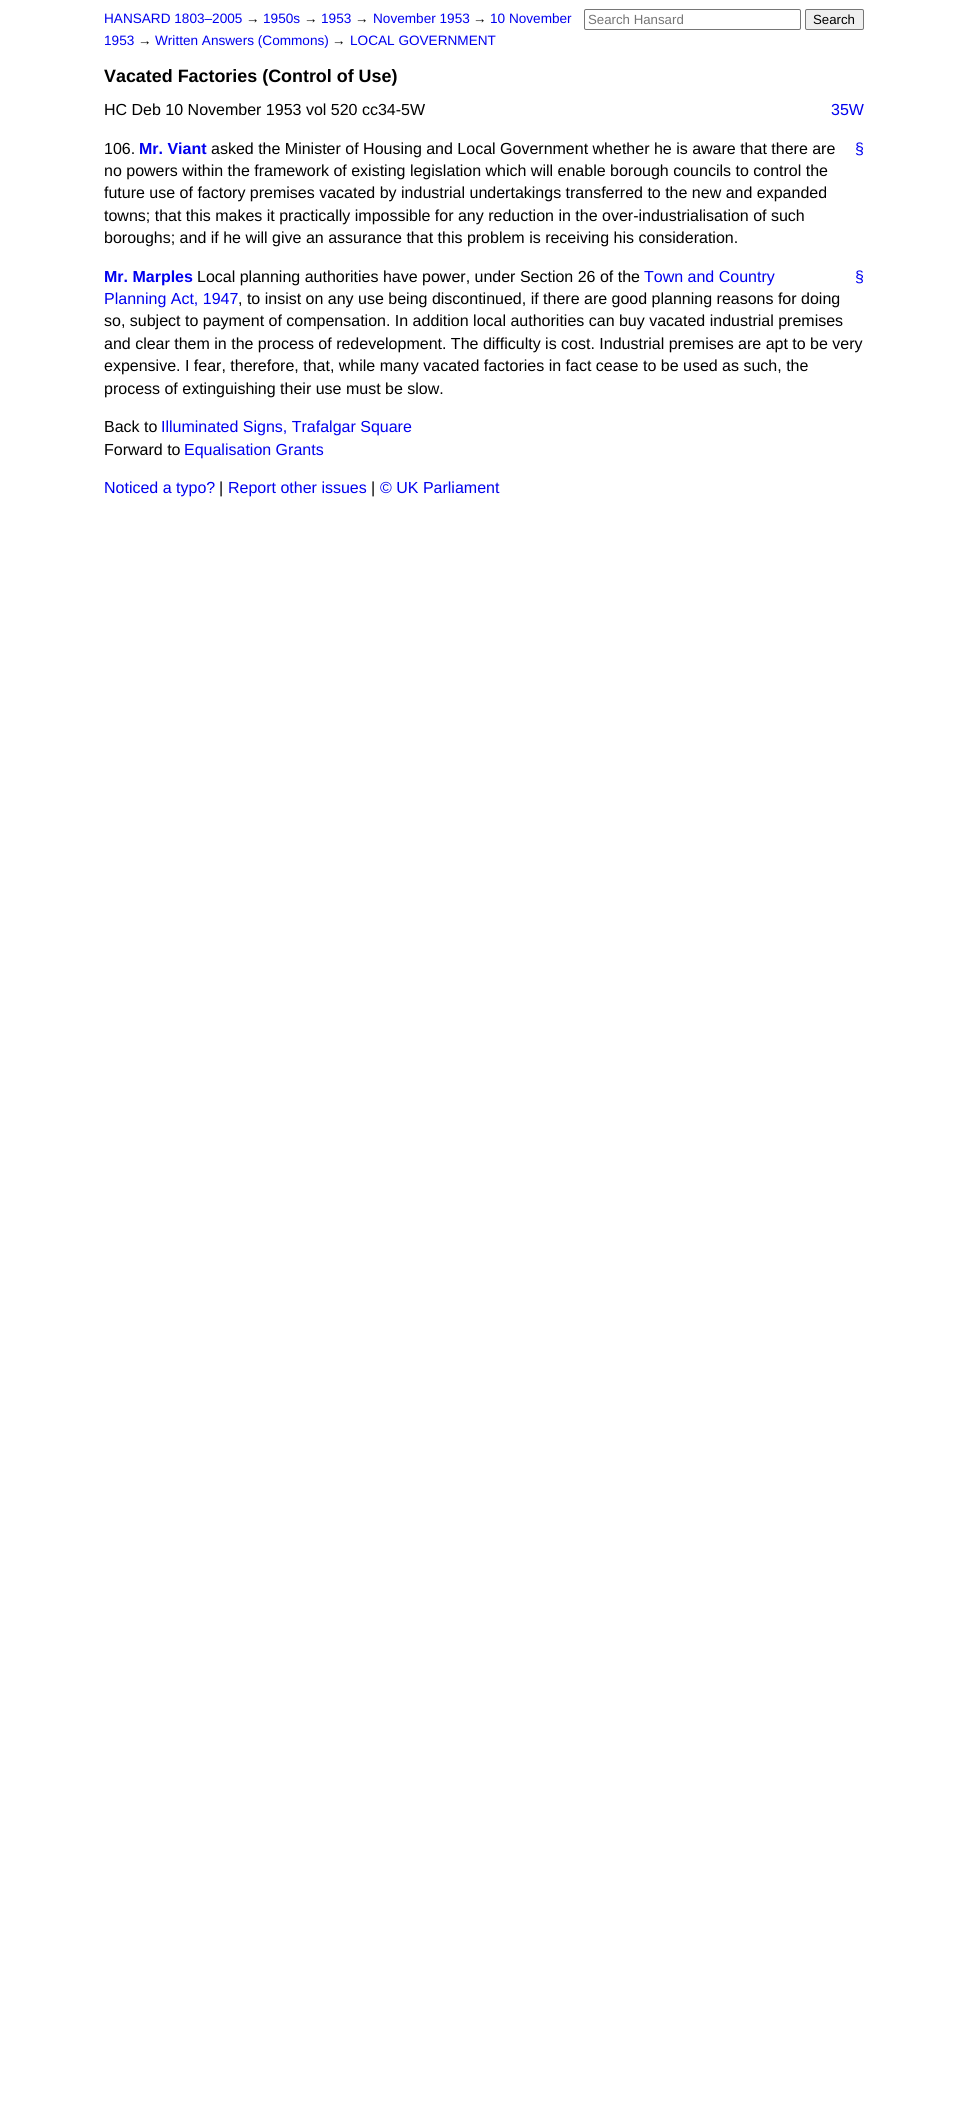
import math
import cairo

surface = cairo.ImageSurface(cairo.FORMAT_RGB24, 967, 2116)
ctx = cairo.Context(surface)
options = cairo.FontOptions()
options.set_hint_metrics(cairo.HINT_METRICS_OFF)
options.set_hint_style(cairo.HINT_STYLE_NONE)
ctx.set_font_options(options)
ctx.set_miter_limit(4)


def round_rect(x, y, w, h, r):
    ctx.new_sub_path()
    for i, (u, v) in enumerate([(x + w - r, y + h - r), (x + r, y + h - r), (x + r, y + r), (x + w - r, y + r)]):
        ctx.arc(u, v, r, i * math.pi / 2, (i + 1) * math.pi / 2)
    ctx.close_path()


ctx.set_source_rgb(1, 1, 1)
ctx.paint()
ctx.select_font_face("Liberation Sans")
ctx.set_font_size(13.6)
ctx.set_source_rgb(0, 0, 0.933)
ctx.move_to(104, 23)
ctx.show_text("HANSARD 1803–2005")
ctx.set_source_rgb(0, 0, 0)
ctx.move_to(246, 23)
ctx.show_text("→")
ctx.set_source_rgb(0, 0, 0.933)
ctx.move_to(263, 23)
ctx.show_text("1950s")
ctx.set_source_rgb(0, 0, 0)
ctx.move_to(304, 23)
ctx.show_text("→")
ctx.set_source_rgb(0, 0, 0.933)
ctx.move_to(321, 23)
ctx.show_text("1953")
ctx.set_source_rgb(0, 0, 0)
ctx.move_to(355, 23)
ctx.show_text("→")
ctx.set_source_rgb(0, 0, 0.933)
ctx.move_to(373, 23)
ctx.show_text("November 1953")
ctx.set_source_rgb(0, 0, 0)
ctx.move_to(473, 23)
ctx.show_text("→")
ctx.set_source_rgb(0, 0, 0.933)
ctx.move_to(490, 23)
ctx.show_text("10 November")
ctx.move_to(104, 45)
ctx.show_text("1953")
ctx.set_source_rgb(0, 0, 0)
ctx.move_to(138, 45)
ctx.show_text("→")
ctx.set_source_rgb(0, 0, 0.933)
ctx.move_to(155, 45)
ctx.show_text("Written Answers (Commons)")
ctx.set_source_rgb(0, 0, 0)
ctx.move_to(332, 45)
ctx.show_text("→")
ctx.set_source_rgb(0, 0, 0.933)
ctx.move_to(350, 45)
ctx.show_text("LOCAL GOVERNMENT")
round_rect(584.5, 9.5, 216, 20, 1.5)
ctx.set_source_rgb(0.463, 0.463, 0.463)
ctx.set_line_width(1)
ctx.stroke()
ctx.set_font_size(13.25)
ctx.set_source_rgb(0.459, 0.459, 0.459)
ctx.move_to(588, 24)
ctx.show_text("Search Hansard")
ctx.set_source_rgb(0.937, 0.937, 0.937)
round_rect(805.5, 9.5, 58, 20, 1.5)
ctx.fill_preserve()
ctx.set_source_rgb(0.463, 0.463, 0.463)
ctx.stroke()
ctx.set_source_rgb(0, 0, 0)
ctx.move_to(813, 24)
ctx.show_text("Search")
ctx.select_font_face("Liberation Sans", cairo.FONT_SLANT_NORMAL, cairo.FONT_WEIGHT_BOLD)
ctx.set_font_size(17.9)
ctx.move_to(104, 82)
ctx.show_text("Vacated Factories (Control of Use)")
ctx.select_font_face("Liberation Sans")
ctx.set_font_size(16)
ctx.move_to(104, 115)
ctx.show_text("HC Deb 10 November 1953 vol 520 cc34-5W")
ctx.set_source_rgb(0, 0, 0.933)
ctx.move_to(831, 115)
ctx.show_text("35W")
ctx.set_source_rgb(0, 0, 0)
ctx.move_to(104, 154)
ctx.show_text("106.")
ctx.select_font_face("Liberation Sans", cairo.FONT_SLANT_NORMAL, cairo.FONT_WEIGHT_BOLD)
ctx.set_source_rgb(0, 0, 0.933)
ctx.move_to(139, 154)
ctx.show_text("Mr. Viant")
ctx.select_font_face("Liberation Sans")
ctx.set_source_rgb(0, 0, 0)
ctx.move_to(211, 154)
ctx.show_text("asked the Minister of Housing and Local Government whether he is aware that there are")
ctx.set_source_rgb(0, 0, 0.933)
ctx.move_to(855, 154)
ctx.show_text("§")
ctx.set_source_rgb(0, 0, 0)
ctx.move_to(104, 176)
ctx.show_text("no powers within the framework of existing legislation which will enable borough councils to control the")
ctx.move_to(104, 198)
ctx.show_text("future use of factory premises vacated by industrial undertakings transferred to the new and expanded")
ctx.move_to(104, 221)
ctx.show_text("towns; that this makes it practically impossible for any reduction in the over-industrialisation of such")
ctx.move_to(104, 243)
ctx.show_text("boroughs; and if he will give an assurance that this problem is receiving his consideration.")
ctx.select_font_face("Liberation Sans", cairo.FONT_SLANT_NORMAL, cairo.FONT_WEIGHT_BOLD)
ctx.set_source_rgb(0, 0, 0.933)
ctx.move_to(104, 282)
ctx.show_text("Mr. Marples")
ctx.select_font_face("Liberation Sans")
ctx.set_source_rgb(0, 0, 0)
ctx.move_to(197, 282)
ctx.show_text("Local planning authorities have power, under Section 26 of the")
ctx.set_source_rgb(0, 0, 0.933)
ctx.move_to(644, 282)
ctx.show_text("Town and Country")
ctx.move_to(855, 282)
ctx.show_text("§")
ctx.move_to(104, 304)
ctx.show_text("Planning Act, 1947")
ctx.set_source_rgb(0, 0, 0)
ctx.move_to(238, 304)
ctx.show_text(", to insist on any use being discontinued, if there are good planning reasons for doing")
ctx.move_to(104, 326)
ctx.show_text("so, subject to payment of compensation. In addition local authorities can buy vacated industrial premises")
ctx.move_to(104, 349)
ctx.show_text("and clear them in the process of redevelopment. The difficulty is cost. Industrial premises are apt to be very")
ctx.move_to(104, 371)
ctx.show_text("expensive. I fear, therefore, that, while many vacated factories in fact cease to be used as such, the")
ctx.move_to(104, 394)
ctx.show_text("process of extinguishing their use must be slow.")
ctx.move_to(104, 432)
ctx.show_text("Back to")
ctx.set_source_rgb(0, 0, 0.933)
ctx.move_to(161, 432)
ctx.show_text("Illuminated Signs, Trafalgar Square")
ctx.set_source_rgb(0, 0, 0)
ctx.move_to(104, 455)
ctx.show_text("Forward to")
ctx.set_source_rgb(0, 0, 0.933)
ctx.move_to(184, 455)
ctx.show_text("Equalisation Grants")
ctx.move_to(104, 493)
ctx.show_text("Noticed a typo?")
ctx.set_source_rgb(0, 0, 0)
ctx.move_to(219, 493)
ctx.show_text("|")
ctx.set_source_rgb(0, 0, 0.933)
ctx.move_to(228, 493)
ctx.show_text("Report other issues")
ctx.set_source_rgb(0, 0, 0)
ctx.move_to(371, 493)
ctx.show_text("|")
ctx.set_source_rgb(0, 0, 0.933)
ctx.move_to(380, 493)
ctx.show_text("© UK Parliament")
surface.write_to_png("page.png")
